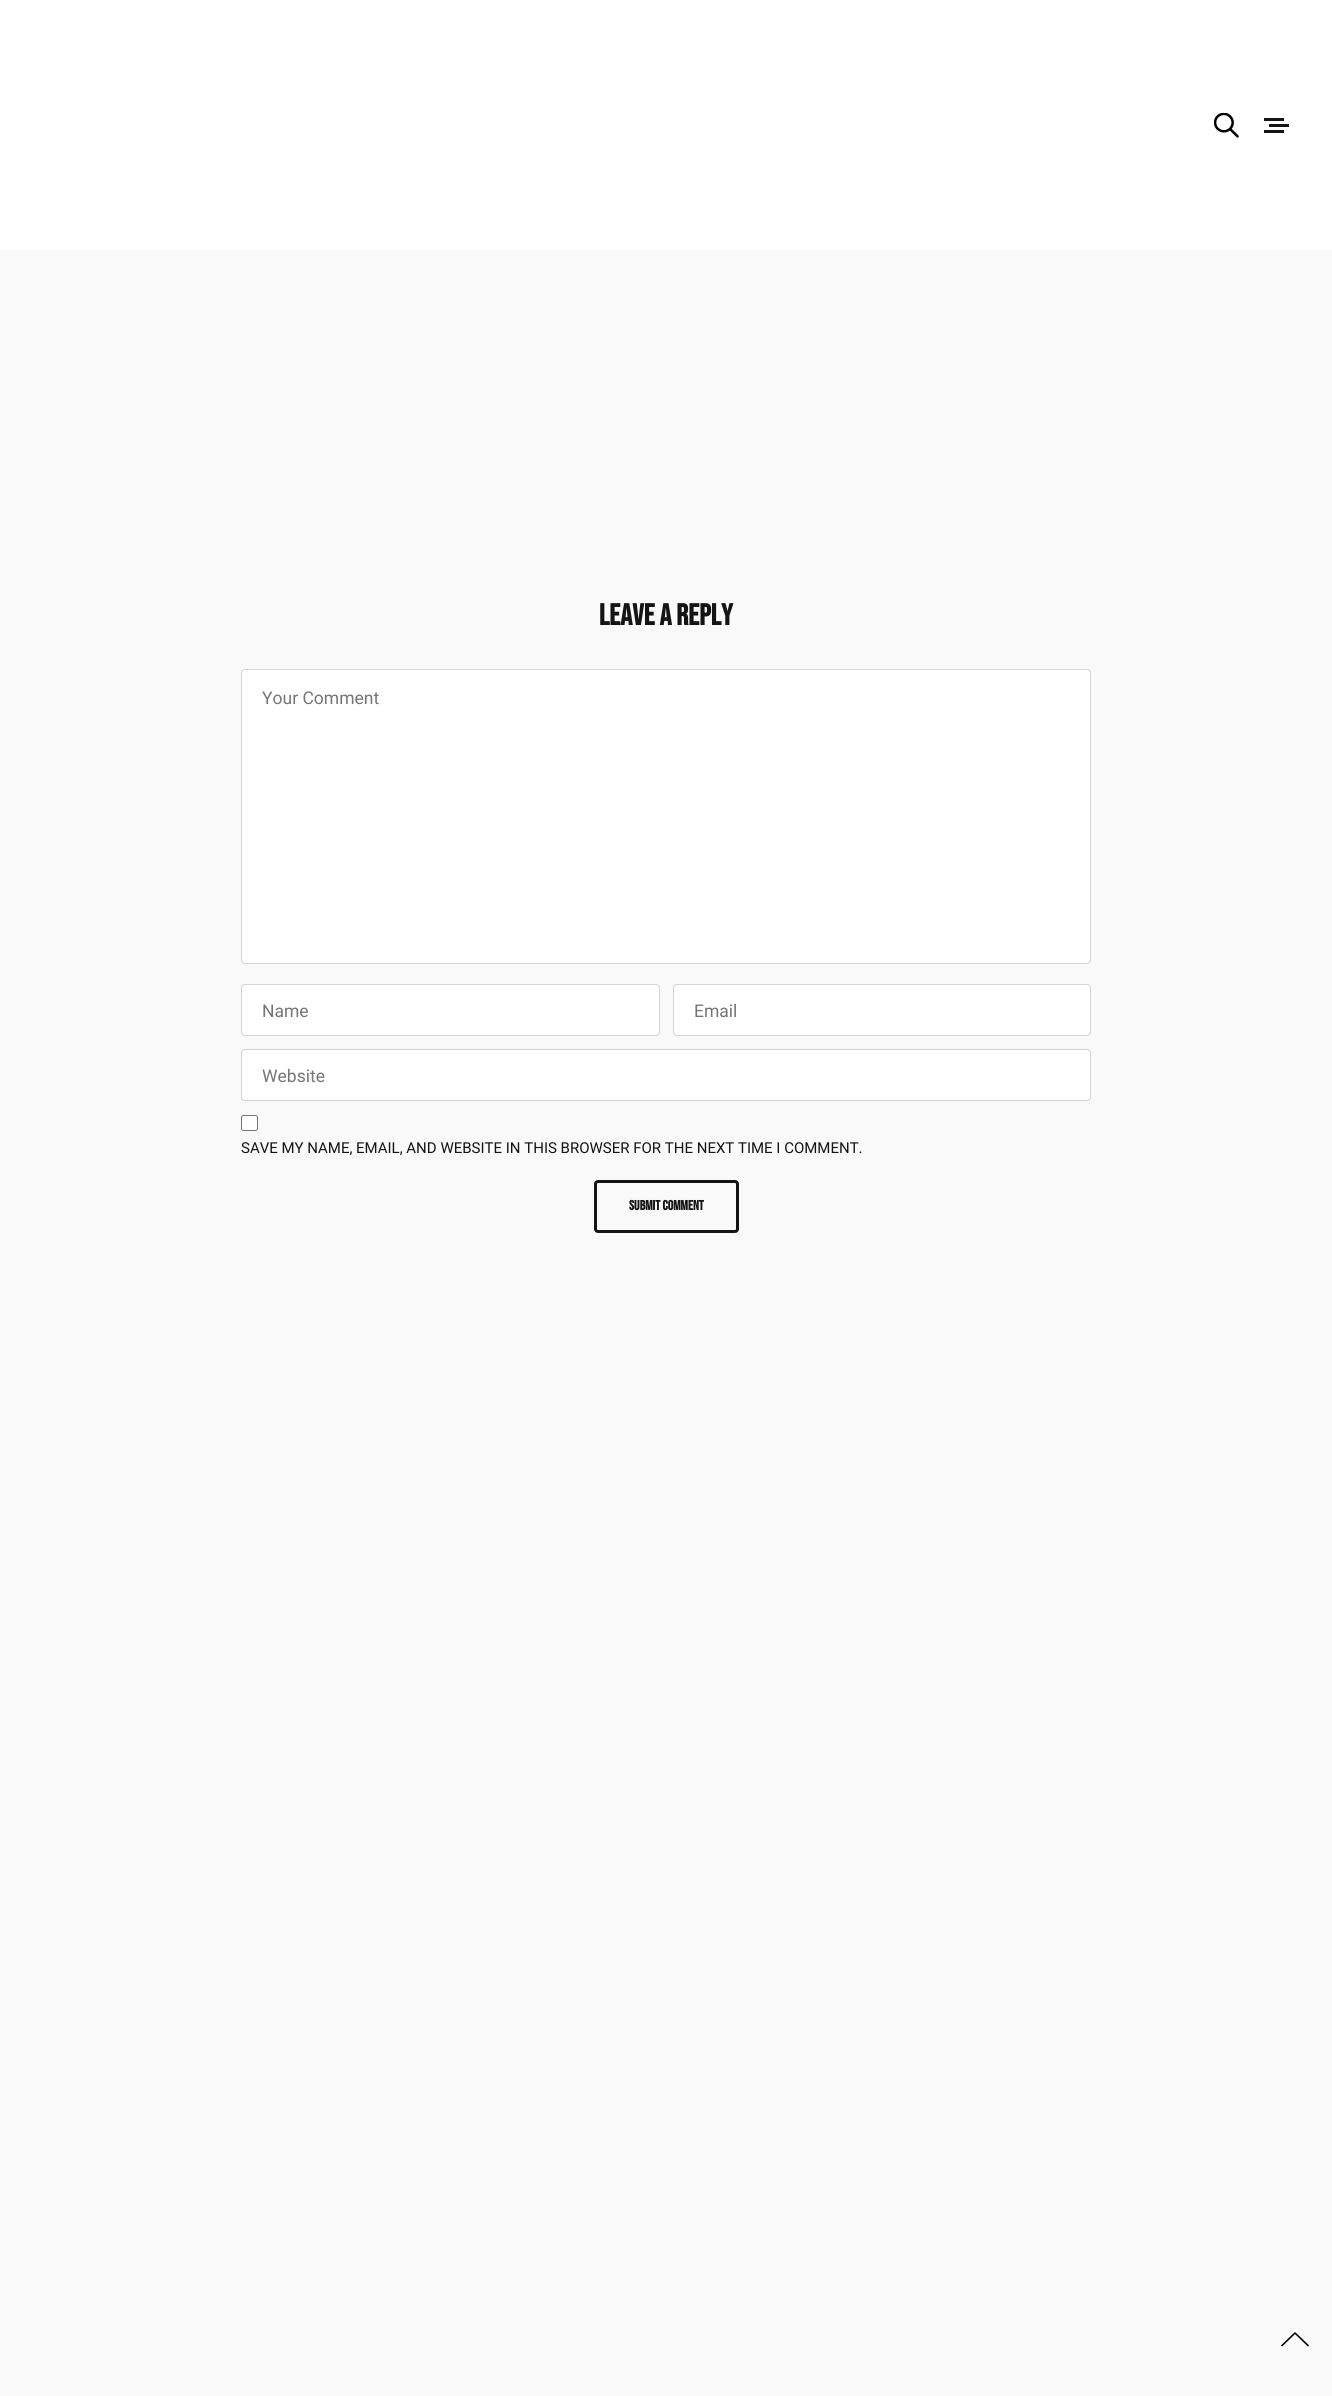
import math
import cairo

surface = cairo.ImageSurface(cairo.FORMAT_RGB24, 1332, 2396)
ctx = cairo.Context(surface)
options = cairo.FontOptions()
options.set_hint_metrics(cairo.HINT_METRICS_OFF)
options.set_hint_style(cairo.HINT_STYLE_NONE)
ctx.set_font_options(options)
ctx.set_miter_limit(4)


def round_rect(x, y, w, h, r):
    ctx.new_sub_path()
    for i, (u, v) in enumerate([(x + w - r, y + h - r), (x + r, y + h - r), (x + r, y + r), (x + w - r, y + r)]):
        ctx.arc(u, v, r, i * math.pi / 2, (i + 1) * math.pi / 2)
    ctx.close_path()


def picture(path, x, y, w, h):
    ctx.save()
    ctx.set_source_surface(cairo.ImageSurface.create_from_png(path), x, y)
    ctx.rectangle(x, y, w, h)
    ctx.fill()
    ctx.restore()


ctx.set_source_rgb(0.976, 0.976, 0.976)
ctx.paint()
ctx.set_source_rgb(1, 1, 1)
ctx.rectangle(0, 0, 1332, 250)
ctx.fill()
picture("img1.png", 1214, 113, 25, 25)
ctx.set_source_rgb(0.082, 0.082, 0.082)
ctx.rectangle(1264, 118, 20, 3)
ctx.fill()
ctx.rectangle(1269, 124, 20, 3)
ctx.fill()
ctx.rectangle(1264, 130, 20, 3)
ctx.fill()
ctx.select_font_face("Bebas Neue", cairo.FONT_SLANT_NORMAL, cairo.FONT_WEIGHT_BOLD)
ctx.set_font_size(30)
ctx.move_to(599, 625)
ctx.show_text("Leave a Reply")
ctx.set_source_rgb(1, 1, 1)
round_rect(241.5, 669.5, 849, 294, 3.5)
ctx.fill_preserve()
ctx.set_source_rgb(0.831, 0.831, 0.831)
ctx.set_line_width(1)
ctx.stroke()
ctx.select_font_face("Roboto")
ctx.set_font_size(17.5)
ctx.set_source_rgb(0.459, 0.459, 0.459)
ctx.move_to(262, 704)
ctx.show_text("Your Comment")
ctx.set_source_rgb(1, 1, 1)
round_rect(241.5, 984.5, 418, 51, 3.5)
ctx.fill_preserve()
ctx.set_source_rgb(0.831, 0.831, 0.831)
ctx.stroke()
ctx.set_source_rgb(0.459, 0.459, 0.459)
ctx.move_to(262, 1017)
ctx.show_text("Name")
ctx.set_source_rgb(1, 1, 1)
round_rect(673.5, 984.5, 417, 51, 3.5)
ctx.fill_preserve()
ctx.set_source_rgb(0.831, 0.831, 0.831)
ctx.stroke()
ctx.set_source_rgb(0.459, 0.459, 0.459)
ctx.move_to(694, 1017)
ctx.show_text("Email")
ctx.set_source_rgb(1, 1, 1)
round_rect(241.5, 1049.5, 849, 51, 3.5)
ctx.fill_preserve()
ctx.set_source_rgb(0.831, 0.831, 0.831)
ctx.stroke()
ctx.set_source_rgb(0.459, 0.459, 0.459)
ctx.move_to(262, 1082)
ctx.show_text("Website")
ctx.set_source_rgb(1, 1, 1)
round_rect(241.5, 1115.5, 16, 15, 2)
ctx.fill_preserve()
ctx.set_source_rgb(0.463, 0.463, 0.463)
ctx.stroke()
ctx.set_font_size(15)
ctx.set_source_rgb(0.082, 0.082, 0.082)
ctx.move_to(241, 1153)
ctx.show_text("SAVE MY NAME, EMAIL, AND WEBSITE IN THIS BROWSER FOR THE NEXT TIME I COMMENT.")
round_rect(595.5, 1181.5, 142, 50, 2.5)
ctx.set_line_width(3)
ctx.stroke()
ctx.select_font_face("Bebas Neue", cairo.FONT_SLANT_NORMAL, cairo.FONT_WEIGHT_BOLD)
ctx.set_font_size(13.75)
ctx.move_to(629, 1210)
ctx.show_text("SUBMIT COMMENT")
ctx.new_path()
ctx.move_to(1281.5, 2346)
ctx.line_to(1295, 2333)
ctx.line_to(1308.5, 2346)
ctx.set_source_rgb(0, 0, 0)
ctx.set_line_width(1.6)
ctx.set_line_join(cairo.LINE_JOIN_BEVEL)
ctx.stroke()
surface.write_to_png("page.png")
